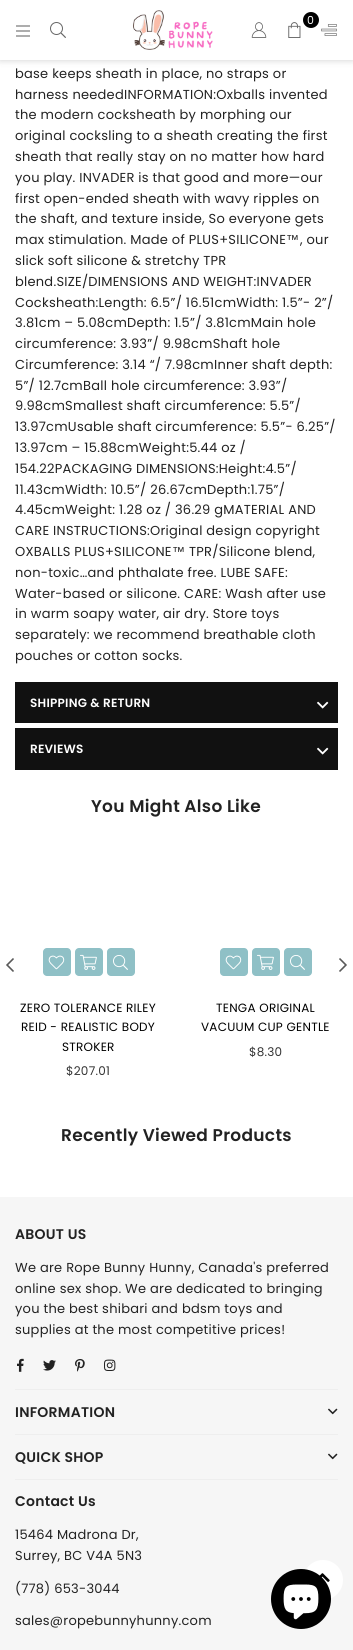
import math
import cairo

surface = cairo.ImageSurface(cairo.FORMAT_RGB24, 353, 1650)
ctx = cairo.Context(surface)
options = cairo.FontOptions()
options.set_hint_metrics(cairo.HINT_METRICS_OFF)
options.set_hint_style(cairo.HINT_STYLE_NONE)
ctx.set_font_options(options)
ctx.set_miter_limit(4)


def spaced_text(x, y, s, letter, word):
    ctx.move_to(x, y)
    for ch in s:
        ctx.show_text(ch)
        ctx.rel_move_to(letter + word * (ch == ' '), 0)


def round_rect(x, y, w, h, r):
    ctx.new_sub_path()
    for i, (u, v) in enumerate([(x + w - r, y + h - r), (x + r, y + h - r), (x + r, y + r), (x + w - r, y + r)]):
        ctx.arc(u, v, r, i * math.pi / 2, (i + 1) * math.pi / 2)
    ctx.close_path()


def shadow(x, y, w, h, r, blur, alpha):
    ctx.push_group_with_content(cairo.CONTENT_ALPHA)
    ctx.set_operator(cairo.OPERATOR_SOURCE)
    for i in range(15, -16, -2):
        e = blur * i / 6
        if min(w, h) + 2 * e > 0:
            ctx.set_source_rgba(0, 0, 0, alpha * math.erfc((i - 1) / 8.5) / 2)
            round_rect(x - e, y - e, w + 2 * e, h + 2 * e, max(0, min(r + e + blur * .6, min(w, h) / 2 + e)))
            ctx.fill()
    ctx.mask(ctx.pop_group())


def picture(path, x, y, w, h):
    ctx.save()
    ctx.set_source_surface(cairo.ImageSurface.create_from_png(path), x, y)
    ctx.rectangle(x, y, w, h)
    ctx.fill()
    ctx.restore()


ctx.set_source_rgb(1, 1, 1)
ctx.paint()
ctx.set_source_rgb(0, 0, 0)
shadow(0, 0, 353, 60, 0, 3.5, 0.2)
ctx.set_source_rgb(1, 1, 1)
ctx.rectangle(0, 0, 353, 60)
ctx.fill()
picture("img1.png", 133, 10, 80, 40)
ctx.set_source_rgb(0, 0, 0)
ctx.arc(311, 20, 8, 0, 2 * math.pi)
ctx.fill()
ctx.select_font_face("Poppins")
ctx.set_font_size(11)
ctx.set_source_rgb(1, 1, 1)
spaced_text(307, 24, "0", 0.25, 0)
picture("img2.png", 288, 22, 13, 16)
picture("img3.png", 251, 22, 16, 16)
picture("img4.png", 321, 24, 16, 12)
picture("img5.png", 16, 25, 14, 12)
picture("img6.png", 50, 22, 16, 16)
ctx.set_font_size(13)
ctx.set_source_rgb(0.133, 0.133, 0.133)
spaced_text(15, 78, "base keeps sheath in place, no straps or", 0.25, 0)
spaced_text(15, 99, "harness neededINFORMATION:Oxballs invented", 0.25, 0)
spaced_text(15, 119, "the modern cocksheath by morphing our", 0.25, 0)
spaced_text(15, 140, "original cocksling to a sheath creating the first", 0.25, 0)
spaced_text(15, 161, "sheath that really stay on no matter how hard", 0.25, 0)
spaced_text(15, 182, "you play. INVADER is that good and more—our", 0.25, 0)
spaced_text(15, 203, "first open-ended sheath with wavy ripples on", 0.25, 0)
spaced_text(15, 223, "the shaft, and texture inside, So everyone gets", 0.25, 0)
spaced_text(15, 244, "max stimulation. Made of PLUS+SILICONE", 0.25, 0)
ctx.select_font_face("Liberation Sans")
spaced_text(286, 244, "™", 0.25, 0)
ctx.select_font_face("Poppins")
spaced_text(300, 244, ", our", 0.25, 0)
spaced_text(15, 265, "slick soft silicone & stretchy TPR", 0.25, 0)
spaced_text(15, 286, "blend.SIZE/DIMENSIONS AND WEIGHT:INVADER", 0.25, 0)
spaced_text(15, 307, "Cocksheath:Length: 6.5”/ 16.51cmWidth: 1.5”- 2”/", 0.25, 0)
spaced_text(15, 327, "3.81cm – 5.08cmDepth: 1.5”/ 3.81cmMain hole", 0.25, 0)
spaced_text(15, 348, "circumference: 3.93”/ 9.98cmShaft hole", 0.25, 0)
spaced_text(15, 369, "Circumference: 3.14 “/ 7.98cmInner shaft depth:", 0.25, 0)
spaced_text(15, 390, "5”/ 12.7cmBall hole circumference: 3.93”/", 0.25, 0)
spaced_text(15, 410, "9.98cmSmallest shaft circumference: 5.5”/", 0.25, 0)
spaced_text(15, 431, "13.97cmUsable shaft circumference: 5.5”- 6.25”/", 0.25, 0)
spaced_text(15, 452, "13.97cm – 15.88cmWeight:5.44 oz /", 0.25, 0)
spaced_text(15, 473, "154.22PACKAGING DIMENSIONS:Height:4.5”/", 0.25, 0)
spaced_text(15, 494, "11.43cmWidth: 10.5”/ 26.67cmDepth:1.75”/", 0.25, 0)
spaced_text(15, 514, "4.45cmWeight: 1.28 oz / 36.29 gMATERIAL AND", 0.25, 0)
spaced_text(15, 535, "CARE INSTRUCTIONS:Original design copyright", 0.25, 0)
spaced_text(15, 556, "OXBALLS PLUS+SILICONE", 0.25, 0)
ctx.select_font_face("Liberation Sans")
spaced_text(172, 556, "™", 0.25, 0)
ctx.select_font_face("Poppins")
spaced_text(189, 556, "TPR/Silicone blend,", 0.25, 0)
spaced_text(15, 577, "non-toxic…and phthalate free. LUBE SAFE:", 0.25, 0)
spaced_text(15, 598, "Water-based or silicone. CARE: Wash after use", 0.25, 0)
spaced_text(15, 618, "in warm soapy water, air dry. Store toys", 0.25, 0)
spaced_text(15, 639, "separately: we recommend breathable cloth", 0.25, 0)
spaced_text(15, 660, "pouches or cotton socks.", 0.25, 0)
ctx.set_source_rgb(0.067, 0.067, 0.067)
ctx.rectangle(15, 682, 323, 41)
ctx.fill()
ctx.select_font_face("Poppins SemiBold")
ctx.set_font_size(12)
ctx.set_source_rgb(1, 1, 1)
spaced_text(30, 707, "SHIPPING & RETURN", 0.25, 0)
picture("img7.png", 317, 701, 12, 8)
ctx.set_source_rgb(0.067, 0.067, 0.067)
ctx.rectangle(15, 728, 323, 42)
ctx.fill()
ctx.set_source_rgb(1, 1, 1)
spaced_text(30, 753, "REVIEWS", 0.25, 0)
picture("img7.png", 317, 747, 12, 8)
ctx.set_font_size(17)
ctx.set_source_rgb(0.133, 0.133, 0.133)
spaced_text(91, 812, "You Might Also Like", 0.3, 0)
picture("img8.png", 6, 958, 8, 14)
picture("img9.png", 339, 958, 8, 14)
ctx.set_source_rgb(0.561, 0.753, 0.776)
round_rect(43, 948, 28, 28, 4)
ctx.fill()
picture("img10.png", 48, 955, 17, 15)
round_rect(75, 948, 28, 28, 4)
ctx.fill()
picture("img11.png", 80, 954, 17, 16)
round_rect(107, 948, 28, 28, 4)
ctx.fill()
picture("img12.png", 113, 955, 15, 15)
ctx.select_font_face("Poppins")
ctx.set_font_size(12)
ctx.set_source_rgb(0, 0, 0)
spaced_text(20, 1012, "ZERO TOLERANCE RILEY", 0.25, 0)
spaced_text(21, 1031, "REID - REALISTIC BODY", 0.25, 0)
spaced_text(62, 1051, "STROKER", 0.25, 0)
ctx.set_source_rgb(0.2, 0.2, 0.2)
spaced_text(66, 1075, "$207.01", 0.25, 0)
ctx.set_source_rgb(0.561, 0.753, 0.776)
round_rect(220, 948, 28, 28, 4)
ctx.fill()
picture("img10.png", 225, 955, 17, 15)
round_rect(252, 948, 28, 28, 4)
ctx.fill()
picture("img11.png", 257, 954, 17, 16)
round_rect(284, 948, 28, 28, 4)
ctx.fill()
picture("img12.png", 290, 955, 15, 15)
ctx.set_source_rgb(0, 0, 0)
spaced_text(216, 1012, "TENGA ORIGINAL", 0.25, 0)
spaced_text(201, 1031, "VACUUM CUP GENTLE", 0.25, 0)
ctx.set_source_rgb(0.2, 0.2, 0.2)
spaced_text(249, 1056, "$8.30", 0.25, 0)
ctx.select_font_face("Poppins SemiBold")
ctx.set_font_size(17)
ctx.set_source_rgb(0.133, 0.133, 0.133)
spaced_text(61, 1141, "Recently Viewed Products", 0.3, 0)
ctx.set_source_rgb(0.961, 0.961, 0.961)
ctx.rectangle(0, 1197, 353, 453)
ctx.fill()
ctx.set_font_size(14)
ctx.set_source_rgb(0.133, 0.133, 0.133)
spaced_text(15, 1239, "ABOUT US", 0.25, 0)
ctx.select_font_face("Poppins")
ctx.set_font_size(13)
spaced_text(15, 1272, "We are Rope Bunny Hunny, Canada's preferred", 0.25, 0)
spaced_text(15, 1293, "online sex shop. We are dedicated to bringing", 0.25, 0)
spaced_text(15, 1313, "you the best shibari and bdsm toys and", 0.25, 0)
spaced_text(15, 1334, "supplies at the most competitive prices!", 0.25, 0)
picture("img13.png", 17, 1358, 7, 14)
picture("img14.png", 43, 1360, 13, 11)
picture("img15.png", 75, 1359, 10, 13)
picture("img16.png", 104, 1359, 12, 12)
ctx.set_source_rgb(0.933, 0.933, 0.933)
ctx.rectangle(15, 1389, 323, 1)
ctx.fill()
ctx.select_font_face("Poppins SemiBold")
ctx.set_font_size(14)
ctx.set_source_rgb(0.133, 0.133, 0.133)
spaced_text(15, 1417, "INFORMATION", 0.25, 0)
picture("img17.png", 328, 1408, 10, 7)
ctx.set_source_rgb(0.933, 0.933, 0.933)
ctx.rectangle(15, 1434, 323, 1)
ctx.fill()
ctx.set_source_rgb(0.133, 0.133, 0.133)
spaced_text(15, 1462, "QUICK SHOP", 0.25, 0)
picture("img17.png", 328, 1453, 10, 7)
ctx.set_source_rgb(0.933, 0.933, 0.933)
ctx.rectangle(15, 1479, 323, 1)
ctx.fill()
ctx.set_source_rgb(0.133, 0.133, 0.133)
spaced_text(15, 1506, "Contact Us", 0.25, 0)
ctx.select_font_face("Poppins")
ctx.set_font_size(13)
spaced_text(15, 1539, "15464 Madrona Dr,", 0.25, 0)
spaced_text(15, 1560, "Surrey, BC V4A 5N3", 0.25, 0)
spaced_text(15, 1593, "(778) 653-3044", 0.25, 0)
spaced_text(15, 1625, "sales@ropebunnyhunny.com", 0.25, 0)
ctx.set_source_rgb(1, 1, 1)
ctx.new_path()
ctx.arc(323, 1580, 20, 0, 2 * math.pi)
ctx.fill()
picture("img18.png", 319, 1573, 11, 9)
ctx.set_source_rgb(0, 0, 0)
ctx.arc(301, 1599, 30, 0, 2 * math.pi)
ctx.fill()
picture("img19.png", 283, 1584, 36, 36)
surface.write_to_png("page.png")
